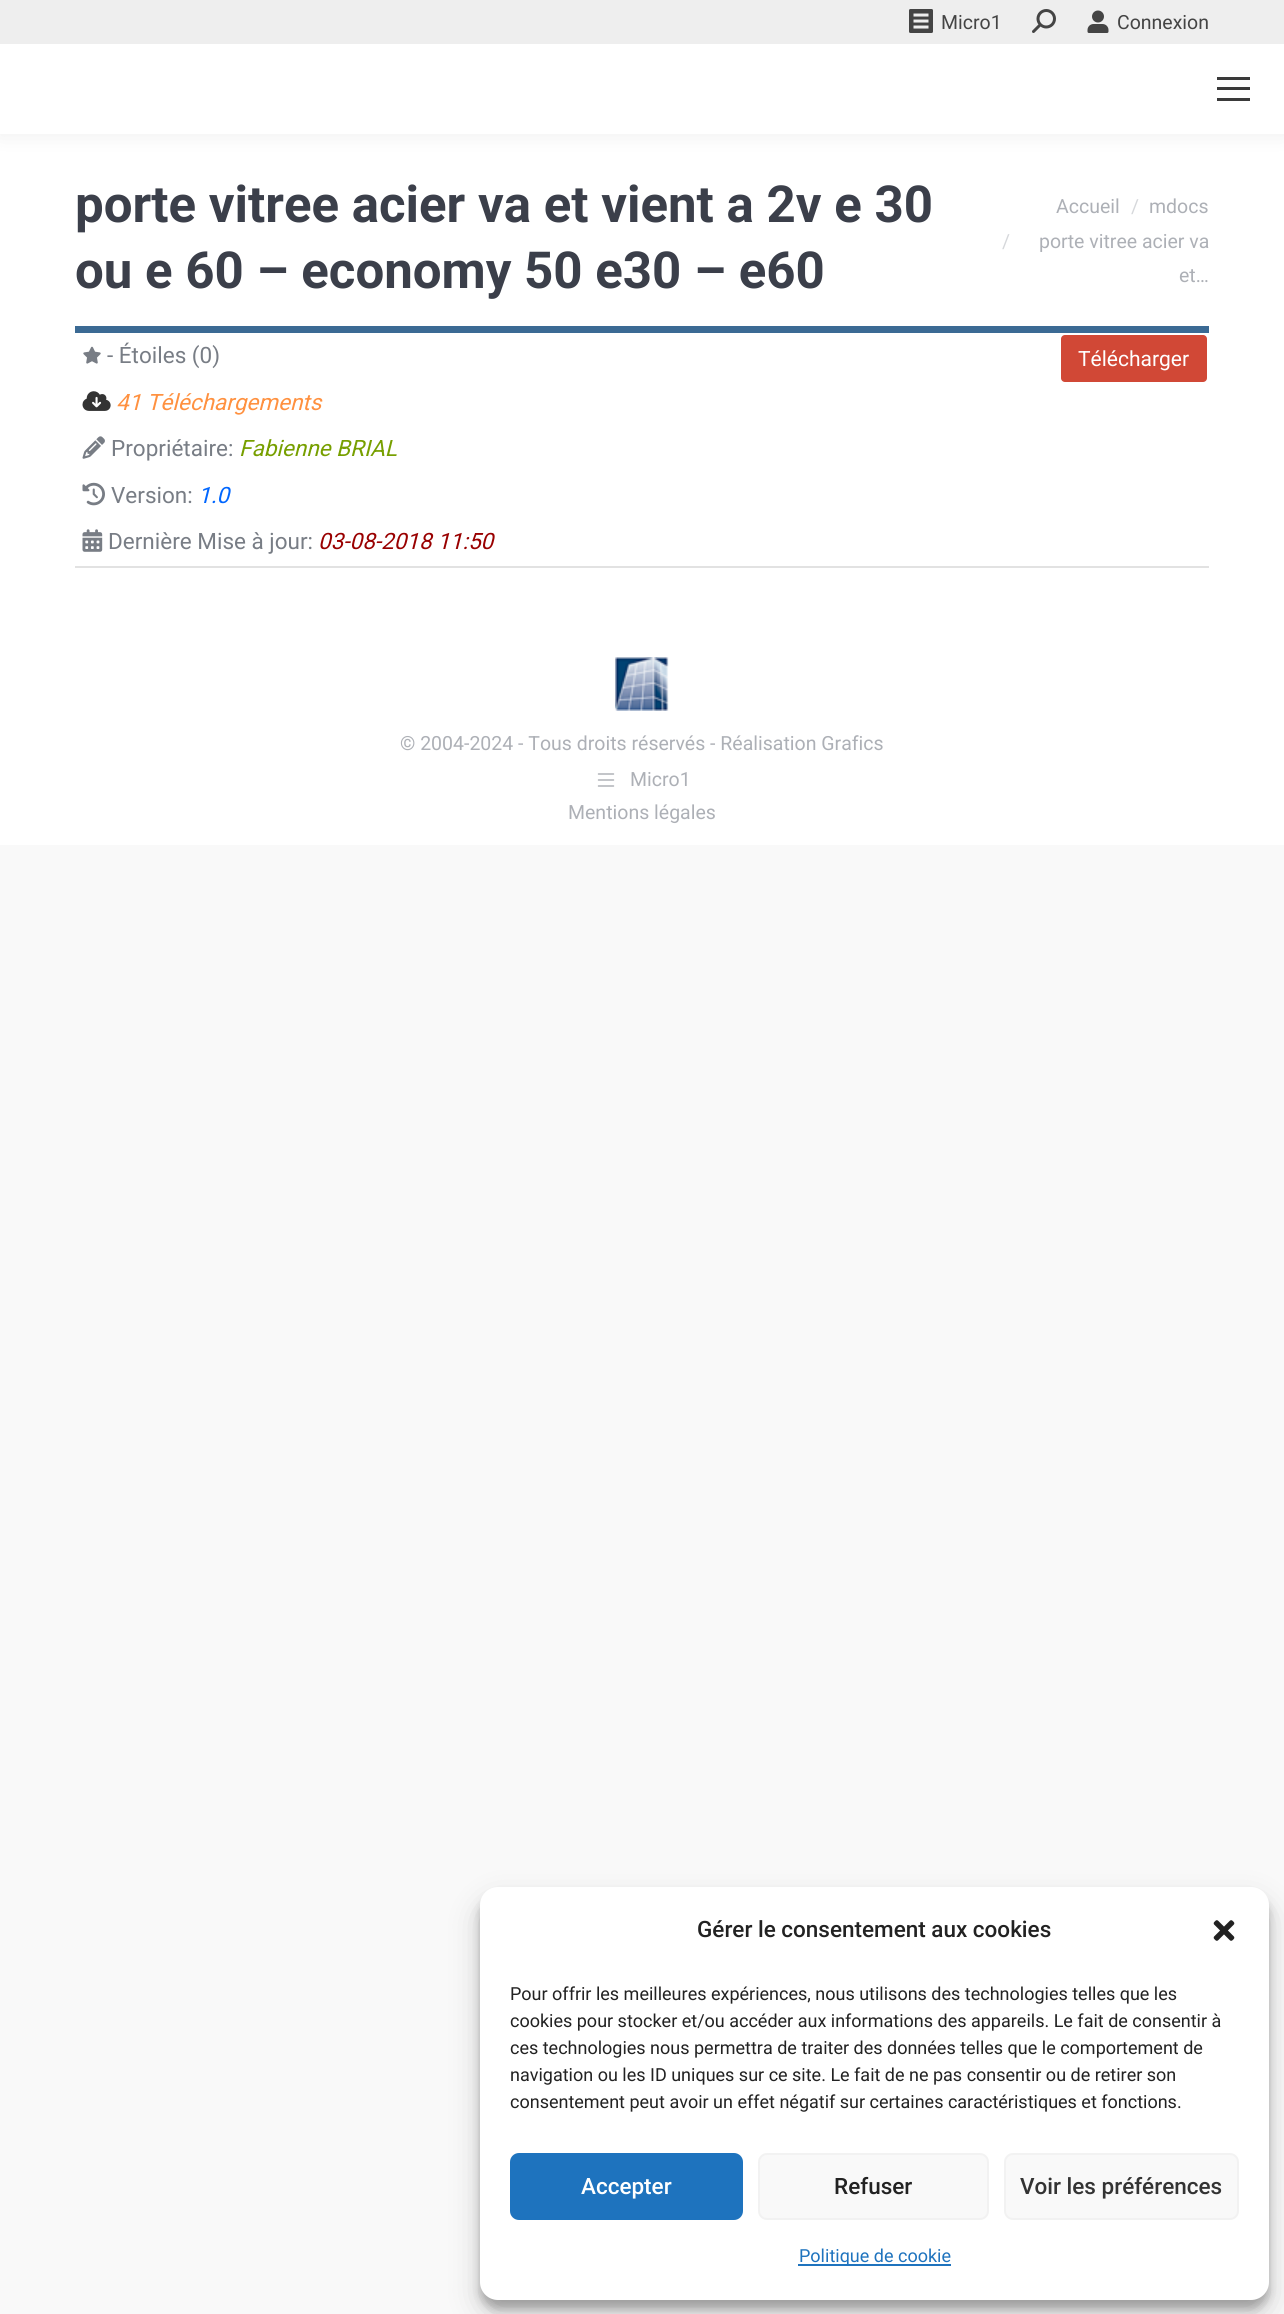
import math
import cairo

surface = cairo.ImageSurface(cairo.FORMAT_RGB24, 1284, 2314)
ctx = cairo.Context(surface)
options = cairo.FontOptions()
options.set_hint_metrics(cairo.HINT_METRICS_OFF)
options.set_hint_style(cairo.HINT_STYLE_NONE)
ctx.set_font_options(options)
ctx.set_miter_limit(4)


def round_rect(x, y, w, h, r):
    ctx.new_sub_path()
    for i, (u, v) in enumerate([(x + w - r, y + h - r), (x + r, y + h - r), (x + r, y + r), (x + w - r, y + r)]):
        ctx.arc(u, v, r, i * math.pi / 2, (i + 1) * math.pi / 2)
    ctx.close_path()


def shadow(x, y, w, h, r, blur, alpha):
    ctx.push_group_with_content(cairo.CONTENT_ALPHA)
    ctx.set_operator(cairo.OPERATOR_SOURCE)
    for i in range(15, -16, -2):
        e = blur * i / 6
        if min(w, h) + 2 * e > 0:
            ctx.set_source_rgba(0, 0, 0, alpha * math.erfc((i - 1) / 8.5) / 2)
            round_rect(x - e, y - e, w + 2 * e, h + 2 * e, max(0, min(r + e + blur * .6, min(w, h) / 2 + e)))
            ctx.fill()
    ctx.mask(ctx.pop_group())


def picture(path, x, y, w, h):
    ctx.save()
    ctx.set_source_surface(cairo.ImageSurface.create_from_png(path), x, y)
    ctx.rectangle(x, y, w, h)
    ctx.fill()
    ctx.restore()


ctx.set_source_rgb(0.973, 0.973, 0.976)
ctx.paint()
ctx.set_source_rgb(1, 1, 1)
ctx.rectangle(0, 134, 1284, 711)
ctx.fill()
ctx.set_source_rgb(0, 0, 0)
shadow(-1, -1, 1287, 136, 0, 11, 0.07)
ctx.set_source_rgb(1, 1, 1)
ctx.rectangle(0, 44, 1284, 90)
ctx.fill()
ctx.set_source_rgb(0.933, 0.933, 0.933)
ctx.rectangle(0, 0, 1284, 44)
ctx.fill()
picture("img1.png", 909, 9, 24, 24)
ctx.select_font_face("Roboto")
ctx.set_font_size(19.5)
ctx.set_source_rgb(0.267, 0.267, 0.267)
ctx.move_to(941, 29)
ctx.show_text("Micro1")
picture("img2.png", 1032, 9, 24, 24)
picture("img3.png", 1087, 10, 22, 23)
ctx.move_to(1117, 29)
ctx.show_text("Connexion")
ctx.set_source_rgb(0.227, 0.227, 0.227)
ctx.rectangle(1217, 77, 33, 3)
ctx.fill()
ctx.rectangle(1217, 87, 33, 3)
ctx.fill()
ctx.rectangle(1217, 98, 33, 3)
ctx.fill()
ctx.select_font_face("Roboto", cairo.FONT_SLANT_NORMAL, cairo.FONT_WEIGHT_BOLD)
ctx.set_font_size(51)
ctx.set_source_rgb(0.231, 0.247, 0.29)
ctx.move_to(75, 222)
ctx.show_text("porte vitree acier va et vient a 2v e 30")
ctx.move_to(75, 288)
ctx.show_text("ou e 60 – economy 50 e30 – e60")
ctx.select_font_face("Roboto")
ctx.set_font_size(19.5)
ctx.set_source_rgb(0.678, 0.69, 0.714)
ctx.move_to(1056, 213)
ctx.show_text("Accueil")
ctx.set_source_rgb(0.839, 0.847, 0.859)
ctx.move_to(1131, 213)
ctx.show_text("/")
ctx.set_source_rgb(0.678, 0.69, 0.714)
ctx.move_to(1149, 213)
ctx.show_text("mdocs")
ctx.set_source_rgb(0.839, 0.847, 0.859)
ctx.move_to(1002, 248)
ctx.show_text("/")
ctx.set_source_rgb(0.678, 0.69, 0.714)
ctx.move_to(1039, 248)
ctx.show_text("porte vitree acier va")
ctx.move_to(1179, 282)
ctx.show_text("et…")
ctx.set_source_rgb(0.231, 0.416, 0.58)
ctx.rectangle(75, 326, 1134, 7)
ctx.fill()
picture("img4.png", 83, 346, 18, 18)
ctx.set_font_size(22.5)
ctx.set_source_rgb(0.471, 0.49, 0.522)
ctx.move_to(107, 363)
ctx.show_text("- Étoiles (0)")
picture("img5.png", 82, 391, 29, 20)
ctx.select_font_face("Roboto", cairo.FONT_SLANT_ITALIC)
ctx.set_source_rgb(1, 0.569, 0.251)
ctx.move_to(116, 410)
ctx.show_text("41 Téléchargements")
picture("img6.png", 82, 436, 23, 23)
ctx.select_font_face("Roboto")
ctx.set_source_rgb(0.471, 0.49, 0.522)
ctx.move_to(111, 456)
ctx.show_text("Propriétaire:")
ctx.select_font_face("Roboto", cairo.FONT_SLANT_ITALIC)
ctx.set_source_rgb(0.467, 0.624, 0)
ctx.move_to(239, 456)
ctx.show_text("Fabienne BRIAL")
picture("img7.png", 82, 482, 23, 24)
ctx.select_font_face("Roboto")
ctx.set_source_rgb(0.471, 0.49, 0.522)
ctx.move_to(111, 503)
ctx.show_text("Version:")
ctx.select_font_face("Roboto", cairo.FONT_SLANT_ITALIC)
ctx.set_source_rgb(0, 0.4, 1)
ctx.move_to(198, 503)
ctx.show_text("1.0")
picture("img8.png", 82, 529, 21, 23)
ctx.select_font_face("Roboto")
ctx.set_source_rgb(0.471, 0.49, 0.522)
ctx.move_to(108, 549)
ctx.show_text("Dernière Mise à jour:")
ctx.select_font_face("Roboto", cairo.FONT_SLANT_ITALIC)
ctx.set_source_rgb(0.6, 0, 0)
ctx.move_to(318, 549)
ctx.show_text("03-08-2018 11:50")
ctx.set_source_rgb(0.82, 0.282, 0.212)
round_rect(1060, 334, 148, 49, 5)
ctx.fill_preserve()
ctx.set_source_rgb(1, 1, 1)
ctx.stroke()
ctx.select_font_face("Roboto")
ctx.set_font_size(21)
ctx.move_to(1078, 366)
ctx.show_text("Télécharger")
ctx.set_source_rgb(0.886, 0.886, 0.886)
ctx.rectangle(75, 566, 1134, 2)
ctx.fill()
picture("img9.png", 615, 657, 54, 54)
ctx.set_font_size(19.5)
ctx.set_source_rgb(0.678, 0.69, 0.714)
ctx.move_to(400, 750)
ctx.show_text("© 2004-2024 - Tous droits réservés - Réalisation Grafics")
picture("img10.png", 597, 773, 18, 14)
ctx.move_to(630, 786)
ctx.show_text("Micro1")
ctx.move_to(568, 819)
ctx.show_text("Mentions légales")
ctx.set_source_rgb(0, 0, 0)
shadow(480, 1896, 789, 413, 18, 4.5, 0.23)
shadow(480, 1902, 789, 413, 18, 15, 0.19)
ctx.set_source_rgb(1, 1, 1)
round_rect(480, 1887, 789, 413, 18)
ctx.fill()
ctx.select_font_face("Roboto Medium")
ctx.set_font_size(22.5)
ctx.set_source_rgb(0.133, 0.133, 0.133)
ctx.move_to(697, 1937)
ctx.show_text("Gérer le consentement aux cookies")
picture("img11.png", 1213, 1920, 22, 21)
ctx.select_font_face("Roboto")
ctx.set_font_size(18)
ctx.move_to(510, 2000)
ctx.show_text("Pour offrir les meilleures expériences, nous utilisons des technologies telles que les")
ctx.move_to(510, 2027)
ctx.show_text("cookies pour stocker et/ou accéder aux informations des appareils. Le fait de consentir à")
ctx.move_to(510, 2054)
ctx.show_text("ces technologies nous permettra de traiter des données telles que le comportement de")
ctx.move_to(510, 2081)
ctx.show_text("navigation ou les ID uniques sur ce site. Le fait de ne pas consentir ou de retirer son")
ctx.move_to(510, 2108)
ctx.show_text("consentement peut avoir un effet négatif sur certaines caractéristiques et fonctions.")
ctx.set_source_rgb(0.118, 0.451, 0.745)
round_rect(511, 2154, 231, 65, 8)
ctx.fill_preserve()
ctx.stroke()
ctx.select_font_face("Roboto Medium")
ctx.set_font_size(22.5)
ctx.set_source_rgb(1, 1, 1)
ctx.move_to(581, 2194)
ctx.show_text("Accepter")
ctx.set_source_rgb(0.976, 0.976, 0.976)
round_rect(759, 2154, 229, 65, 8)
ctx.fill_preserve()
ctx.set_source_rgb(0.949, 0.949, 0.949)
ctx.stroke()
ctx.set_source_rgb(0.133, 0.133, 0.133)
ctx.move_to(834, 2194)
ctx.show_text("Refuser")
ctx.set_source_rgb(0.976, 0.976, 0.976)
round_rect(1005, 2154, 233, 65, 8)
ctx.fill_preserve()
ctx.set_source_rgb(0.949, 0.949, 0.949)
ctx.stroke()
ctx.set_source_rgb(0.2, 0.2, 0.2)
ctx.move_to(1020, 2194)
ctx.show_text("Voir les préférences")
ctx.set_source_rgb(0.118, 0.451, 0.745)
ctx.rectangle(798, 2264, 153, 2)
ctx.fill()
ctx.select_font_face("Roboto")
ctx.set_font_size(18)
ctx.move_to(799, 2262)
ctx.show_text("Politique de cookie")
surface.write_to_png("page.png")
